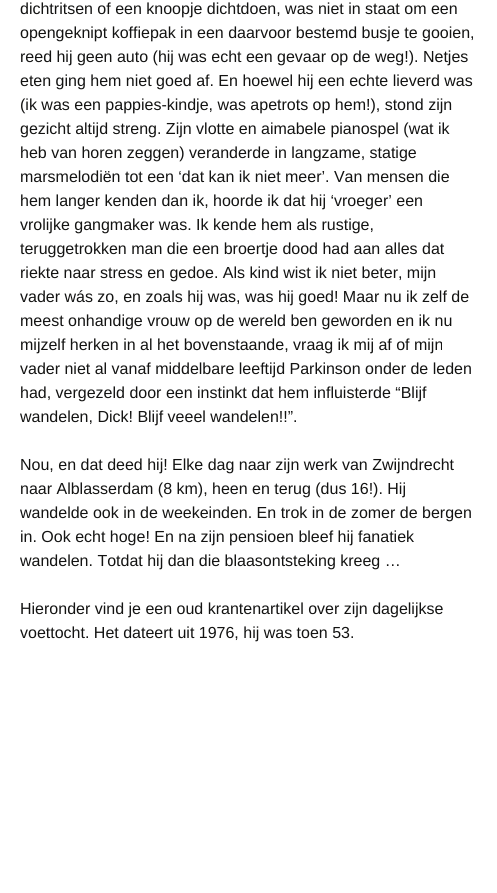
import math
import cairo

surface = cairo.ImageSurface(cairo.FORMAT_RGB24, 497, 893)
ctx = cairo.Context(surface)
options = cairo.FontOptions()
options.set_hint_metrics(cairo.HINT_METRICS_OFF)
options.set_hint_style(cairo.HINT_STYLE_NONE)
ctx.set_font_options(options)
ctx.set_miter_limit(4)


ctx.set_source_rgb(1, 1, 1)
ctx.paint()
ctx.select_font_face("Liberation Sans")
ctx.set_font_size(16)
ctx.set_source_rgb(0.078, 0.078, 0.071)
ctx.move_to(20, 14)
ctx.show_text("dichtritsen of een knoopje dichtdoen, was niet in staat om een")
ctx.move_to(20, 38)
ctx.show_text("opengeknipt koffiepak in een daarvoor bestemd busje te gooien,")
ctx.move_to(20, 62)
ctx.show_text("reed hij geen auto (hij was echt een gevaar op de weg!). Netjes")
ctx.move_to(20, 86)
ctx.show_text("eten ging hem niet goed af. En hoewel hij een echte lieverd was")
ctx.move_to(20, 110)
ctx.show_text("(ik was een pappies-kindje, was apetrots op hem!), stond zijn")
ctx.move_to(20, 134)
ctx.show_text("gezicht altijd streng. Zijn vlotte en aimabele pianospel (wat ik")
ctx.move_to(20, 158)
ctx.show_text("heb van horen zeggen) veranderde in langzame, statige")
ctx.move_to(20, 182)
ctx.show_text("marsmelodiën tot een ‘dat kan ik niet meer’. Van mensen die")
ctx.move_to(20, 206)
ctx.show_text("hem langer kenden dan ik, hoorde ik dat hij ‘vroeger’ een")
ctx.move_to(20, 230)
ctx.show_text("vrolijke gangmaker was. Ik kende hem als rustige,")
ctx.move_to(20, 254)
ctx.show_text("teruggetrokken man die een broertje dood had aan alles dat")
ctx.move_to(20, 278)
ctx.show_text("riekte naar stress en gedoe. Als kind wist ik niet beter, mijn")
ctx.move_to(20, 302)
ctx.show_text("vader wás zo, en zoals hij was, was hij goed! Maar nu ik zelf de")
ctx.move_to(20, 326)
ctx.show_text("meest onhandige vrouw op de wereld ben geworden en ik nu")
ctx.move_to(20, 350)
ctx.show_text("mijzelf herken in al het bovenstaande, vraag ik mij af of mijn")
ctx.move_to(20, 374)
ctx.show_text("vader niet al vanaf middelbare leeftijd Parkinson onder de leden")
ctx.move_to(20, 398)
ctx.show_text("had, vergezeld door een instinkt dat hem influisterde “Blijf")
ctx.move_to(20, 422)
ctx.show_text("wandelen, Dick! Blijf veeel wandelen!!”.")
ctx.move_to(20, 470)
ctx.show_text("Nou, en dat deed hij! Elke dag naar zijn werk van Zwijndrecht")
ctx.move_to(20, 494)
ctx.show_text("naar Alblasserdam (8 km), heen en terug (dus 16!). Hij")
ctx.move_to(20, 518)
ctx.show_text("wandelde ook in de weekeinden. En trok in de zomer de bergen")
ctx.move_to(20, 542)
ctx.show_text("in. Ook echt hoge! En na zijn pensioen bleef hij fanatiek")
ctx.move_to(20, 566)
ctx.show_text("wandelen. Totdat hij dan die blaasontsteking kreeg …")
ctx.move_to(20, 614)
ctx.show_text("Hieronder vind je een oud krantenartikel over zijn dagelijkse")
ctx.move_to(20, 638)
ctx.show_text("voettocht. Het dateert uit 1976, hij was toen 53.")
surface.write_to_png("page.png")
